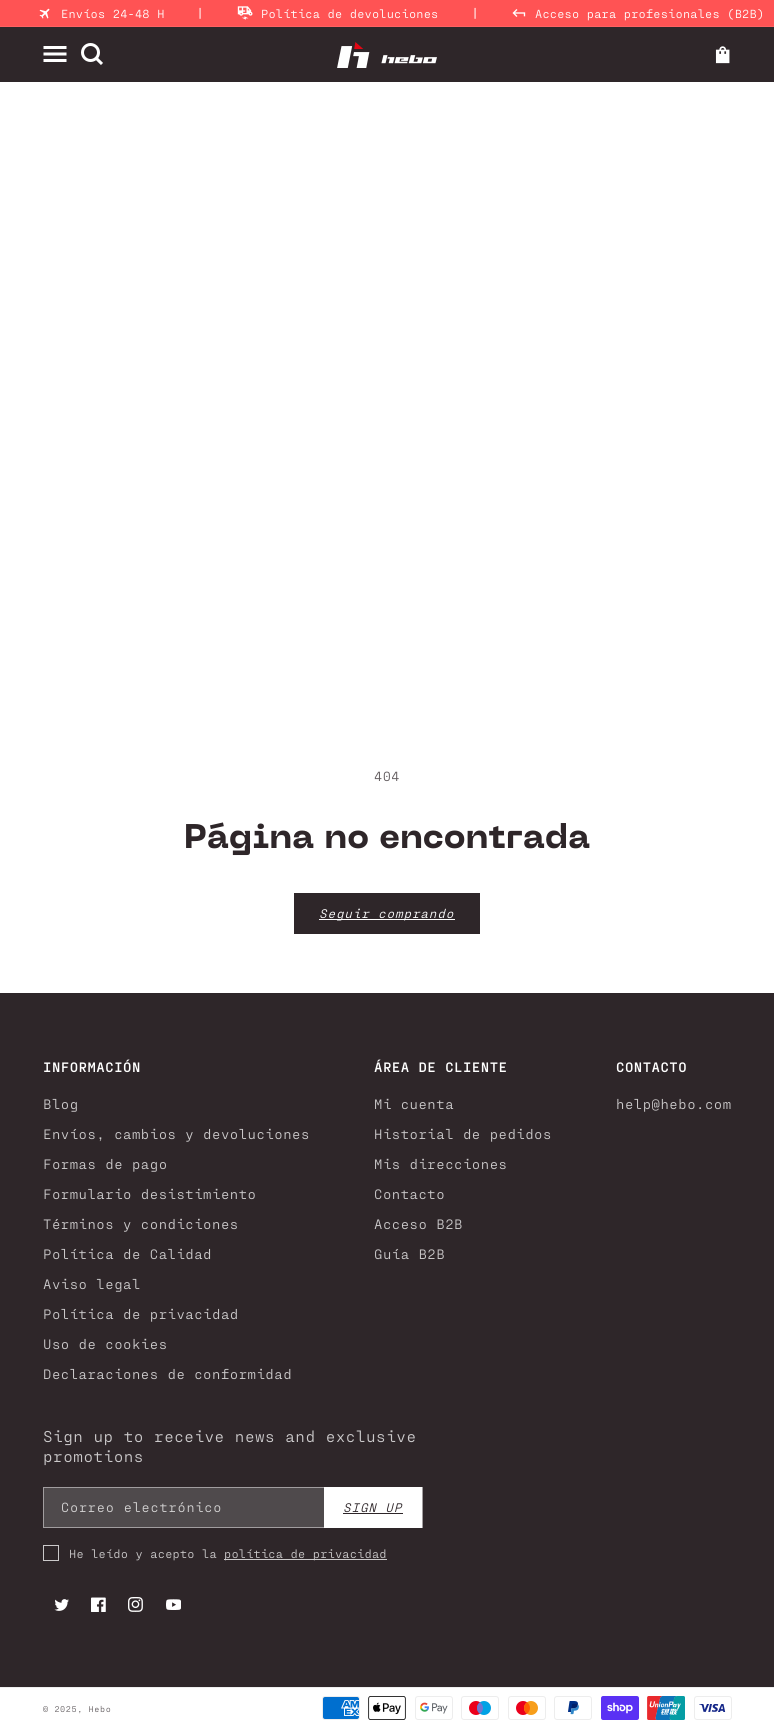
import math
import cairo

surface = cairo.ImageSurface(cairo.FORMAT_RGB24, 774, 1728)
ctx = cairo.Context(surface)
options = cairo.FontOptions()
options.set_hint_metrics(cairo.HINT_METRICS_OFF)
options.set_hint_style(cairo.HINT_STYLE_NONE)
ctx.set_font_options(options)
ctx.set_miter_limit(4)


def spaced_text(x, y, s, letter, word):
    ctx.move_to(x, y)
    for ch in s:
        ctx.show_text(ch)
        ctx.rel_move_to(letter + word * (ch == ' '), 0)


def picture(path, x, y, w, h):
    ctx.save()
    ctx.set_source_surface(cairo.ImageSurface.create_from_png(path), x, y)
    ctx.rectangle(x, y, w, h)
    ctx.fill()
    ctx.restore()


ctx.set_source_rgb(1, 1, 1)
ctx.paint()
ctx.set_source_rgb(1, 0.325, 0.329)
ctx.rectangle(0, 0, 774, 26)
ctx.fill()
ctx.set_source_rgb(1, 0.38, 0.384)
ctx.rectangle(0, 26, 774, 1)
ctx.fill()
picture("img1.png", 39, 8, 11, 11)
ctx.select_font_face("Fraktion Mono")
ctx.set_font_size(12)
ctx.set_source_rgb(1, 1, 1)
spaced_text(61, 18, "Envíos 24-48 H", 0.2, 0)
ctx.set_font_size(13.6)
spaced_text(196, 18, "|", 0.5, 0)
picture("img2.png", 237, 6, 16, 14)
ctx.set_font_size(12)
spaced_text(261, 18, "Política de devoluciones", 0.2, 0)
ctx.set_font_size(13.6)
spaced_text(471, 18, "|", 0.5, 0)
picture("img3.png", 512, 9, 14, 8)
ctx.set_font_size(12)
spaced_text(535, 18, "Acceso para profesionales (B2B)", 0.2, 0)
ctx.set_source_rgb(0.18, 0.149, 0.161)
ctx.rectangle(0, 27, 774, 55)
ctx.fill()
ctx.new_path()
ctx.move_to(45, 47.5)
ctx.line_to(65, 47.5)
ctx.move_to(45, 54)
ctx.line_to(65, 54)
ctx.move_to(45, 60.5)
ctx.line_to(65, 60.5)
ctx.set_source_rgb(1, 1, 1)
ctx.set_line_width(3)
ctx.set_line_cap(cairo.LINE_CAP_SQUARE)
ctx.stroke()
picture("img4.png", 81, 43, 22, 22)
picture("img5.png", 337, 42, 100, 26)
picture("img6.png", 715, 46, 15, 18)
ctx.set_font_size(13.6)
ctx.set_source_rgb(0.384, 0.361, 0.373)
spaced_text(374, 781, "404", 0.5, 0)
ctx.select_font_face("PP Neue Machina", cairo.FONT_SLANT_NORMAL, cairo.FONT_WEIGHT_BOLD)
ctx.set_font_size(34)
ctx.set_source_rgb(0.18, 0.149, 0.161)
spaced_text(184, 848, "Página no encontrada", 0.5, 0)
ctx.rectangle(294, 893, 186, 41)
ctx.fill()
ctx.set_source_rgb(1, 1, 1)
ctx.rectangle(319, 919, 136, 1)
ctx.fill()
ctx.select_font_face("Fraktion Mono", cairo.FONT_SLANT_ITALIC)
ctx.set_font_size(12.75)
spaced_text(319, 918, "Seguir comprando", 0.8, 0)
ctx.set_source_rgb(0.18, 0.149, 0.161)
ctx.rectangle(0, 993, 774, 694)
ctx.fill()
ctx.select_font_face("Fraktion Mono", cairo.FONT_SLANT_NORMAL, cairo.FONT_WEIGHT_BOLD)
ctx.set_font_size(14)
ctx.set_source_rgb(1, 1, 1)
spaced_text(43, 1072, "INFORMACIÓN", 0.5, 0)
ctx.select_font_face("Fraktion Mono")
ctx.set_source_rgb(0.796, 0.788, 0.792)
spaced_text(43, 1109, "Blog", 0.5, 0)
spaced_text(43, 1139, "Envíos, cambios y devoluciones", 0.5, 0)
spaced_text(43, 1169, "Formas de pago", 0.5, 0)
spaced_text(43, 1199, "Formulario desistimiento", 0.5, 0)
spaced_text(43, 1229, "Términos y condiciones", 0.5, 0)
spaced_text(43, 1259, "Política de Calidad", 0.5, 0)
spaced_text(43, 1289, "Aviso legal", 0.5, 0)
spaced_text(43, 1319, "Política de privacidad", 0.5, 0)
spaced_text(43, 1349, "Uso de cookies", 0.5, 0)
spaced_text(43, 1379, "Declaraciones de conformidad", 0.5, 0)
ctx.select_font_face("Fraktion Mono", cairo.FONT_SLANT_NORMAL, cairo.FONT_WEIGHT_BOLD)
ctx.set_source_rgb(1, 1, 1)
spaced_text(374, 1072, "ÁREA DE CLIENTE", 0.5, 0)
ctx.select_font_face("Fraktion Mono")
ctx.set_source_rgb(0.796, 0.788, 0.792)
spaced_text(374, 1109, "Mi cuenta", 0.5, 0)
spaced_text(374, 1139, "Historial de pedidos", 0.5, 0)
spaced_text(374, 1169, "Mis direcciones", 0.5, 0)
spaced_text(374, 1199, "Contacto", 0.5, 0)
spaced_text(374, 1229, "Acceso B2B", 0.5, 0)
spaced_text(374, 1259, "Guía B2B", 0.5, 0)
ctx.select_font_face("Fraktion Mono", cairo.FONT_SLANT_NORMAL, cairo.FONT_WEIGHT_BOLD)
ctx.set_source_rgb(1, 1, 1)
spaced_text(616, 1072, "CONTACTO", 0.5, 0)
ctx.select_font_face("Fraktion Mono")
ctx.set_source_rgb(0.796, 0.788, 0.792)
spaced_text(616, 1109, "help@hebo.com", 0.5, 0)
ctx.set_font_size(16)
spaced_text(43, 1442, "Sign up to receive news and exclusive", 0.5, 0)
spaced_text(43, 1462, "promotions", 0.5, 0)
ctx.set_source_rgb(0.31, 0.29, 0.298)
ctx.rectangle(44, 1488, 280, 39)
ctx.fill()
ctx.rectangle(43.5, 1487.5, 379, 40)
ctx.set_source_rgb(0.631, 0.616, 0.624)
ctx.set_line_width(1)
ctx.set_line_cap(cairo.LINE_CAP_BUTT)
ctx.stroke()
ctx.set_font_size(13.6)
ctx.set_source_rgb(0.827, 0.824, 0.824)
spaced_text(61, 1512, "Correo electrónico", 0.8, 0)
ctx.set_source_rgb(1, 1, 1)
ctx.rectangle(324, 1487, 98, 41)
ctx.fill()
ctx.select_font_face("Fraktion Mono", cairo.FONT_SLANT_ITALIC)
ctx.set_font_size(12.75)
ctx.set_source_rgb(0.18, 0.149, 0.161)
spaced_text(343, 1512, "SIGN UP", 0.8, 0)
ctx.rectangle(343, 1513, 60, 1)
ctx.fill()
ctx.rectangle(43.5, 1545.5, 15, 15)
ctx.set_source_rgb(0.796, 0.788, 0.792)
ctx.stroke()
ctx.select_font_face("Fraktion Mono")
ctx.set_font_size(12)
spaced_text(69, 1558, "He leído y acepto la", 0.2, 0)
ctx.rectangle(224, 1559, 163, 1)
ctx.fill()
spaced_text(224, 1558, "política de privacidad", 0.2, 0)
picture("img7.png", 54, 1599, 15, 12)
picture("img8.png", 91, 1597, 15, 15)
picture("img9.png", 128, 1597, 15, 15)
picture("img10.png", 166, 1599, 15, 11)
ctx.set_source_rgb(0.933, 0.933, 0.933)
ctx.rectangle(0, 1687, 774, 1)
ctx.fill()
ctx.set_font_size(8.5)
ctx.set_source_rgb(0.384, 0.361, 0.373)
spaced_text(43, 1712, "© 2025, Hebo", 0.6, 0)
picture("img11.png", 322, 1696, 38, 24)
picture("img12.png", 368, 1696, 38, 24)
picture("img13.png", 415, 1696, 38, 24)
picture("img14.png", 461, 1696, 38, 24)
picture("img15.png", 508, 1696, 38, 24)
picture("img16.png", 554, 1696, 38, 24)
picture("img17.png", 601, 1696, 38, 24)
picture("img18.png", 647, 1696, 38, 24)
picture("img19.png", 694, 1696, 38, 24)
surface.write_to_png("page.png")
